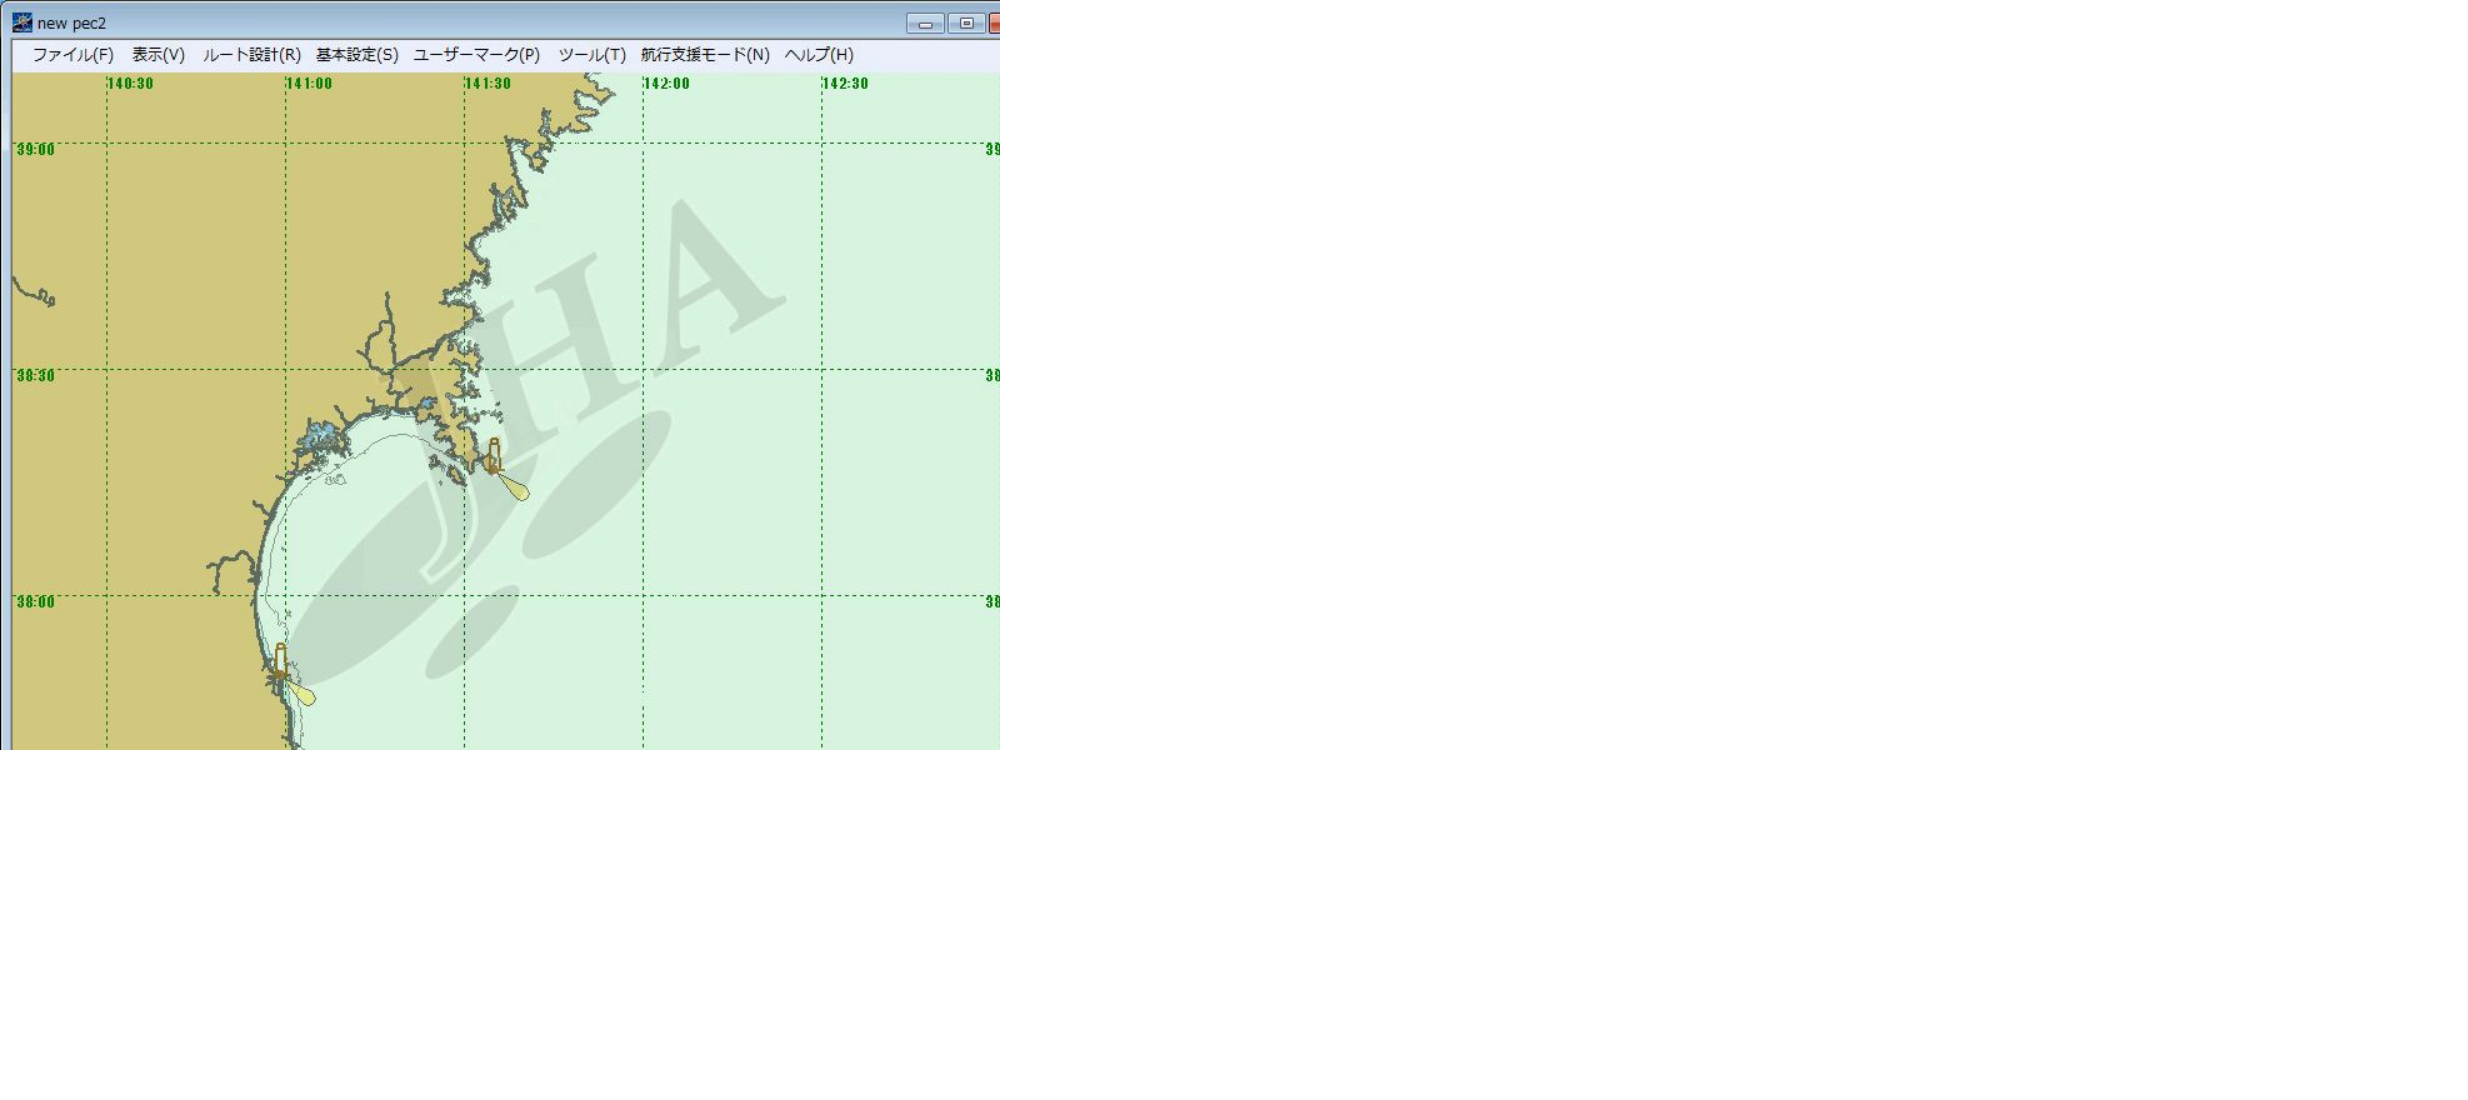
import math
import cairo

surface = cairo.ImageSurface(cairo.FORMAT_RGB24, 2468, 1100)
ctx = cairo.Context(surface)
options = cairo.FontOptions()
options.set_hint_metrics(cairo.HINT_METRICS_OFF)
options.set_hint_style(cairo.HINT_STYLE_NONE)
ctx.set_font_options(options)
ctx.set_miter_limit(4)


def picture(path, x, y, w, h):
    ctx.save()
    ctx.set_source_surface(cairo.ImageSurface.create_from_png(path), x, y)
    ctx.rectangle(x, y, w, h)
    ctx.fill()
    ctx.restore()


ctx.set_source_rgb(1, 1, 1)
ctx.paint()
picture("img1.png", 0, 0, 1000, 750)
surface.write_to_png("page.png")
